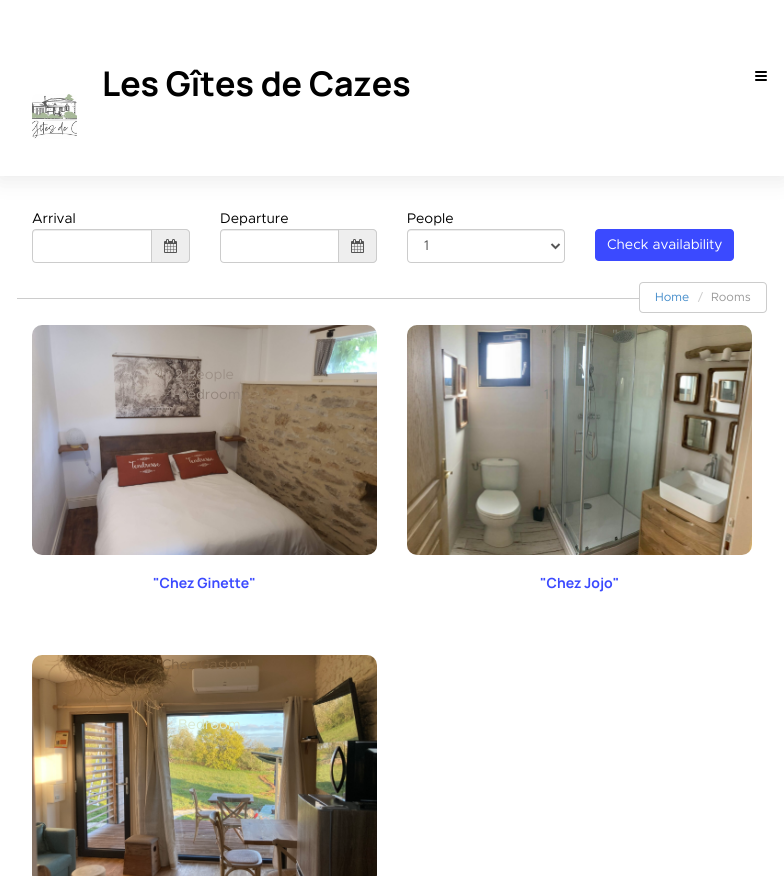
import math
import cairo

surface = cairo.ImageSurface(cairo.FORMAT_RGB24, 784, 876)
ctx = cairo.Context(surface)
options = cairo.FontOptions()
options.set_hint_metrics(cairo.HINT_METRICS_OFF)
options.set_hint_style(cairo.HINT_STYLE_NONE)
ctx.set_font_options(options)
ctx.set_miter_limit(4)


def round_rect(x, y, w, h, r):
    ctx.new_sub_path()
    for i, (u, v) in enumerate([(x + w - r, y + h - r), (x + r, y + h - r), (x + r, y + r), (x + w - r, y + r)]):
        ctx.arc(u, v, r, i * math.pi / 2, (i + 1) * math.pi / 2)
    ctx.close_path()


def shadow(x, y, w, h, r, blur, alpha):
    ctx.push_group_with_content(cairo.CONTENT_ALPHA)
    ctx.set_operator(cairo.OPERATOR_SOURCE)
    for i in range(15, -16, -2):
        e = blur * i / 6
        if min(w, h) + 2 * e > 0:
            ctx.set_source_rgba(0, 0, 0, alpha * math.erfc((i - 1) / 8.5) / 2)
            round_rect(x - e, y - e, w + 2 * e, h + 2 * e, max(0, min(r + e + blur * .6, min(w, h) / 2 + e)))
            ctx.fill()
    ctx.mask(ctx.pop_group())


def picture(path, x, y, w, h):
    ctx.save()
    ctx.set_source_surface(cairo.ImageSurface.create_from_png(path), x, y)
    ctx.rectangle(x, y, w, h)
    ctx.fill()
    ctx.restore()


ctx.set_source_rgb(1, 1, 1)
ctx.paint()
ctx.set_source_rgb(0.914, 0.914, 0.914)
shadow(0, 3, 784, 176, 0, 11, 1)
ctx.set_source_rgb(1, 1, 1)
ctx.rectangle(0, 0, 784, 176)
ctx.fill()
ctx.select_font_face("Manrope", cairo.FONT_SLANT_NORMAL, cairo.FONT_WEIGHT_BOLD)
ctx.set_font_size(34)
ctx.set_source_rgb(0, 0, 0)
ctx.move_to(102, 96)
ctx.show_text("Les Gîtes de Cazes")
picture("img1.png", 32, 94, 45, 45)
round_rect(755, 71, 12, 2, 1)
ctx.fill()
round_rect(755, 75, 12, 2, 1)
ctx.fill()
round_rect(755, 79, 12, 2, 1)
ctx.fill()
ctx.select_font_face("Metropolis")
ctx.set_font_size(14)
ctx.move_to(32, 223)
ctx.show_text("Arrival")
ctx.set_source_rgb(0.925, 0.925, 0.925)
ctx.new_path()
ctx.move_to(36, 231)
ctx.line_to(151, 231)
ctx.line_to(151, 230)
ctx.line_to(36, 230)
ctx.curve_to(34, 230, 33, 231, 33, 233)
ctx.line_to(33, 234)
ctx.curve_to(33, 232, 34, 231, 36, 231)
ctx.close_path()
ctx.fill()
ctx.new_path()
ctx.move_to(36, 229.5)
ctx.line_to(151.5, 229.5)
ctx.line_to(151.5, 262.5)
ctx.line_to(36, 262.5)
ctx.curve_to(34, 262.5, 32.5, 261, 32.5, 259)
ctx.line_to(32.5, 233)
ctx.curve_to(32.5, 231, 34, 229.5, 36, 229.5)
ctx.close_path()
ctx.set_source_rgb(0.8, 0.8, 0.8)
ctx.set_line_width(1)
ctx.stroke()
ctx.set_source_rgb(0.933, 0.933, 0.933)
ctx.new_path()
ctx.move_to(152, 229)
ctx.line_to(186, 229)
ctx.curve_to(188, 229, 190, 231, 190, 233)
ctx.line_to(190, 259)
ctx.curve_to(190, 261, 188, 263, 186, 263)
ctx.line_to(152, 263)
ctx.close_path()
ctx.fill()
ctx.set_source_rgb(0.8, 0.8, 0.8)
ctx.set_fill_rule(cairo.FILL_RULE_EVEN_ODD)
ctx.new_path()
ctx.move_to(152, 229)
ctx.line_to(186, 229)
ctx.curve_to(188, 229, 190, 231, 190, 233)
ctx.line_to(190, 259)
ctx.curve_to(190, 261, 188, 263, 186, 263)
ctx.line_to(152, 263)
ctx.close_path()
ctx.move_to(152, 230)
ctx.line_to(186, 230)
ctx.curve_to(187.5, 230, 189, 231.5, 189, 233)
ctx.line_to(189, 259)
ctx.curve_to(189, 260.5, 187.5, 262, 186, 262)
ctx.line_to(152, 262)
ctx.close_path()
ctx.fill()
picture("img2.png", 164, 239, 13, 14)
ctx.set_source_rgb(0, 0, 0)
ctx.move_to(220, 223)
ctx.show_text("Departure")
ctx.set_source_rgb(0.925, 0.925, 0.925)
ctx.set_fill_rule(cairo.FILL_RULE_WINDING)
ctx.new_path()
ctx.move_to(224, 231)
ctx.line_to(338, 231)
ctx.line_to(338, 230)
ctx.line_to(224, 230)
ctx.curve_to(222, 230, 221, 231, 221, 233)
ctx.line_to(221, 234)
ctx.curve_to(221, 232, 222, 231, 224, 231)
ctx.close_path()
ctx.fill()
ctx.new_path()
ctx.move_to(224, 229.5)
ctx.line_to(338.5, 229.5)
ctx.line_to(338.5, 262.5)
ctx.line_to(224, 262.5)
ctx.curve_to(222, 262.5, 220.5, 261, 220.5, 259)
ctx.line_to(220.5, 233)
ctx.curve_to(220.5, 231, 222, 229.5, 224, 229.5)
ctx.close_path()
ctx.set_source_rgb(0.8, 0.8, 0.8)
ctx.stroke()
ctx.set_source_rgb(0.933, 0.933, 0.933)
ctx.new_path()
ctx.move_to(339, 229)
ctx.line_to(373, 229)
ctx.curve_to(375, 229, 377, 231, 377, 233)
ctx.line_to(377, 259)
ctx.curve_to(377, 261, 375, 263, 373, 263)
ctx.line_to(339, 263)
ctx.close_path()
ctx.fill()
ctx.set_source_rgb(0.8, 0.8, 0.8)
ctx.set_fill_rule(cairo.FILL_RULE_EVEN_ODD)
ctx.new_path()
ctx.move_to(339, 229)
ctx.line_to(373, 229)
ctx.curve_to(375, 229, 377, 231, 377, 233)
ctx.line_to(377, 259)
ctx.curve_to(377, 261, 375, 263, 373, 263)
ctx.line_to(339, 263)
ctx.close_path()
ctx.move_to(339, 230)
ctx.line_to(373, 230)
ctx.curve_to(374.5, 230, 376, 231.5, 376, 233)
ctx.line_to(376, 259)
ctx.curve_to(376, 260.5, 374.5, 262, 373, 262)
ctx.line_to(339, 262)
ctx.close_path()
ctx.fill()
picture("img2.png", 351, 239, 13, 14)
ctx.set_source_rgb(0, 0, 0)
ctx.move_to(407, 223)
ctx.show_text("People")
ctx.set_source_rgb(0.925, 0.925, 0.925)
ctx.set_fill_rule(cairo.FILL_RULE_WINDING)
ctx.new_path()
ctx.move_to(411, 231)
ctx.line_to(561, 231)
ctx.curve_to(563, 231, 564, 232, 564, 234)
ctx.curve_to(564, 232, 563, 230, 561, 230)
ctx.line_to(410, 230)
ctx.curve_to(408, 230, 408, 232, 408, 234)
ctx.curve_to(408, 232, 409, 231, 411, 231)
ctx.close_path()
ctx.fill()
round_rect(407.5, 229.5, 157, 33, 3.5)
ctx.set_source_rgb(0.8, 0.8, 0.8)
ctx.stroke()
ctx.new_path()
ctx.move_to(551.5, 244)
ctx.line_to(555.5, 248)
ctx.line_to(559.5, 244)
ctx.set_source_rgb(0.333, 0.333, 0.333)
ctx.set_line_width(2)
ctx.stroke()
ctx.move_to(424, 250)
ctx.show_text("1")
ctx.set_source_rgb(0.231, 0.29, 1)
round_rect(595, 229, 139, 32, 4)
ctx.fill()
ctx.set_source_rgb(1, 1, 1)
ctx.move_to(607, 249)
ctx.show_text("Check availability")
ctx.set_source_rgb(0.8, 0.8, 0.8)
ctx.rectangle(17, 298, 622, 1)
ctx.fill()
round_rect(639.5, 282.5, 127, 30, 3.5)
ctx.set_line_width(1)
ctx.stroke()
ctx.set_font_size(12)
ctx.set_source_rgb(0.259, 0.545, 0.792)
ctx.move_to(655, 301)
ctx.show_text("Home")
ctx.set_source_rgb(0.8, 0.8, 0.8)
ctx.move_to(698, 301)
ctx.show_text("/")
ctx.set_source_rgb(0.6, 0.6, 0.6)
ctx.move_to(711, 301)
ctx.show_text("Rooms")
picture("img3.png", 32, 325, 345, 230)
ctx.set_font_size(14)
ctx.set_source_rgb(0.612, 0.565, 0.525)
ctx.move_to(175, 379)
ctx.show_text("2 People")
ctx.set_source_rgb(0.576, 0.525, 0.486)
ctx.move_to(169, 399)
ctx.show_text("1 Bedroom")
ctx.select_font_face("Manrope", cairo.FONT_SLANT_NORMAL, cairo.FONT_WEIGHT_BOLD)
ctx.set_source_rgb(0.231, 0.29, 1)
ctx.move_to(153, 588)
ctx.show_text("\"Chez Ginette\"")
picture("img4.png", 407, 325, 345, 230)
ctx.select_font_face("Metropolis")
ctx.set_source_rgb(0.494, 0.494, 0.447)
ctx.move_to(541, 339)
ctx.show_text("\"")
ctx.move_to(612, 339)
ctx.show_text("\"")
ctx.set_source_rgb(0.502, 0.525, 0.502)
ctx.move_to(544, 399)
ctx.show_text("1")
ctx.select_font_face("Manrope", cairo.FONT_SLANT_NORMAL, cairo.FONT_WEIGHT_BOLD)
ctx.set_source_rgb(0.231, 0.29, 1)
ctx.move_to(540, 588)
ctx.show_text("\"Chez Jojo\"")
picture("img5.png", 32, 655, 345, 221)
ctx.select_font_face("Metropolis")
ctx.set_source_rgb(0.49, 0.38, 0.255)
ctx.move_to(156, 669)
ctx.show_text("\"Chez Gaston\"")
ctx.set_source_rgb(0.847, 0.91, 0.82)
ctx.move_to(178, 729)
ctx.show_text("Bedroom")
surface.write_to_png("page.png")
